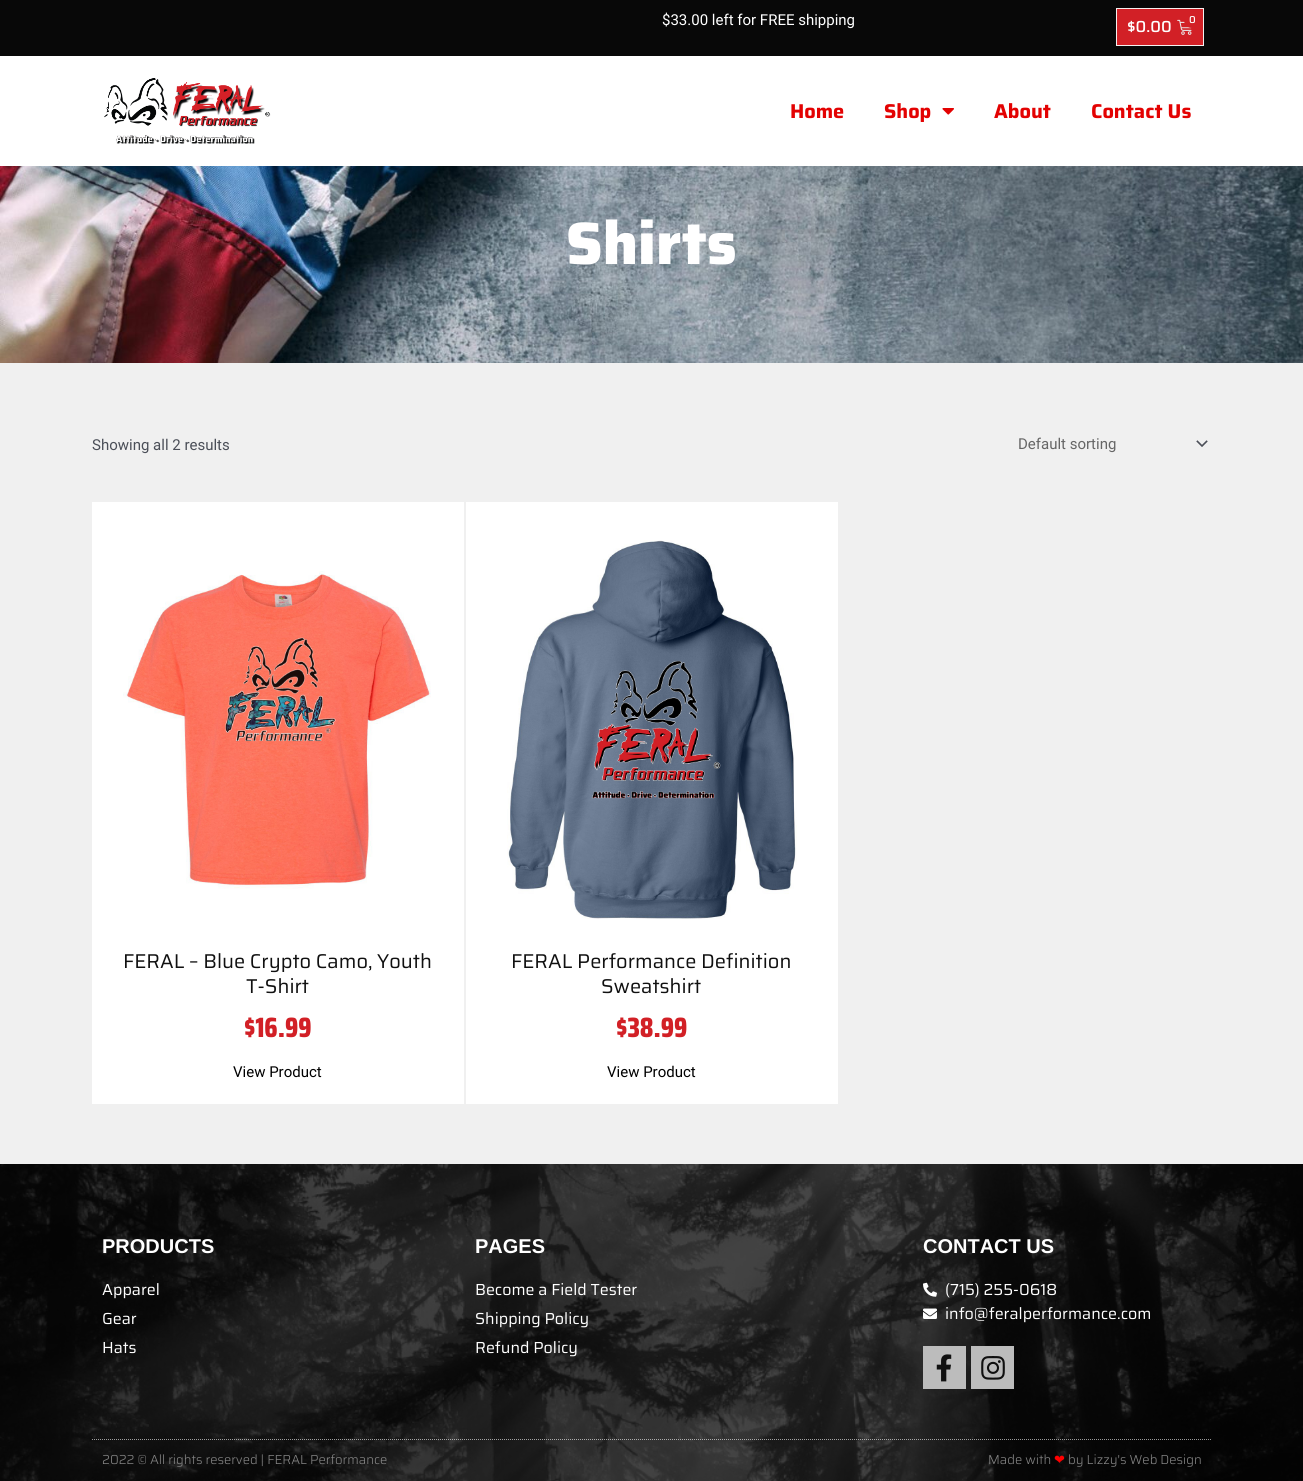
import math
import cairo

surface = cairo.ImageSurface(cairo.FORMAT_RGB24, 1303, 1481)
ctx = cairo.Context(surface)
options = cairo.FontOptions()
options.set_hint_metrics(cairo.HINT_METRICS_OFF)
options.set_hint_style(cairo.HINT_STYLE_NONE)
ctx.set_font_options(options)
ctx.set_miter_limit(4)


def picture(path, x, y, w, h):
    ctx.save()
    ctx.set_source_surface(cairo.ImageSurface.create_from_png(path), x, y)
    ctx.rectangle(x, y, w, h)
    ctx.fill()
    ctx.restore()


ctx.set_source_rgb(1, 1, 1)
ctx.paint()
ctx.set_source_rgb(0.035, 0.035, 0.035)
ctx.rectangle(0, 0, 1303, 56)
ctx.fill()
ctx.select_font_face("Roboto")
ctx.set_font_size(15)
ctx.set_source_rgb(1, 1, 1)
ctx.move_to(662, 25)
ctx.show_text("$33.00 left for FREE shipping")
ctx.set_source_rgb(0.824, 0.125, 0.149)
ctx.rectangle(1116.5, 8.5, 87, 37)
ctx.fill_preserve()
ctx.set_source_rgb(0.957, 0.941, 0.941)
ctx.set_line_width(1)
ctx.stroke()
ctx.select_font_face("Saira Medium")
ctx.set_font_size(16)
ctx.set_source_rgb(1, 1, 1)
ctx.move_to(1127, 32)
ctx.show_text("$0.00")
picture("img1.png", 1177, 19, 16, 16)
ctx.set_source_rgb(0.824, 0.125, 0.149)
ctx.arc(1192, 20, 8, 0, 2 * math.pi)
ctx.fill()
ctx.set_font_size(10)
ctx.set_source_rgb(1, 1, 1)
ctx.move_to(1189, 23)
ctx.show_text("0")
picture("img2.png", 104, 78, 167, 66)
ctx.select_font_face("Saira", cairo.FONT_SLANT_NORMAL, cairo.FONT_WEIGHT_BOLD)
ctx.set_font_size(20)
ctx.set_source_rgb(0.89, 0.008, 0.008)
ctx.move_to(790, 118)
ctx.show_text("Home")
ctx.move_to(884, 118)
ctx.show_text("Shop")
picture("img3.png", 942, 108, 12, 7)
ctx.move_to(994, 118)
ctx.show_text("About")
ctx.move_to(1091, 118)
ctx.show_text("Contact Us")
picture("img4.png", 0, 166, 1303, 197)
ctx.select_font_face("Saira ExtraBold")
ctx.set_font_size(60)
ctx.set_source_rgb(1, 1, 1)
ctx.move_to(566, 264)
ctx.show_text("Shirts")
ctx.set_source_rgb(0.941, 0.941, 0.941)
ctx.rectangle(0, 363, 1303, 801)
ctx.fill()
ctx.select_font_face("Roboto")
ctx.set_font_size(15)
ctx.set_source_rgb(0.294, 0.31, 0.345)
ctx.move_to(92, 450)
ctx.show_text("Showing all 2 results")
picture("img5.png", 1196, 440, 12, 7)
ctx.set_source_rgb(0.4, 0.4, 0.4)
ctx.move_to(1018, 449)
ctx.show_text("Default sorting")
ctx.set_source_rgb(1, 1, 1)
ctx.rectangle(92, 502, 372, 602)
ctx.fill()
picture("img6.png", 123, 571, 308, 318)
ctx.select_font_face("Saira")
ctx.set_font_size(20)
ctx.set_source_rgb(0.063, 0.063, 0.063)
ctx.move_to(123, 968)
ctx.show_text("FERAL – Blue Crypto Camo, Youth")
ctx.move_to(246, 993)
ctx.show_text("T-Shirt")
ctx.select_font_face("Saira Condensed ExtraBold")
ctx.set_font_size(28)
ctx.set_source_rgb(0.824, 0.125, 0.149)
ctx.move_to(244, 1037)
ctx.show_text("$16.99")
ctx.select_font_face("Roboto")
ctx.set_font_size(15)
ctx.set_source_rgb(0, 0, 0)
ctx.move_to(233, 1077)
ctx.show_text("View Product")
ctx.set_source_rgb(1, 1, 1)
ctx.rectangle(466, 502, 372, 602)
ctx.fill()
picture("img7.png", 507, 540, 290, 379)
ctx.select_font_face("Saira")
ctx.set_font_size(20)
ctx.set_source_rgb(0.063, 0.063, 0.063)
ctx.move_to(511, 968)
ctx.show_text("FERAL Performance Definition")
ctx.move_to(601, 993)
ctx.show_text("Sweatshirt")
ctx.select_font_face("Saira Condensed ExtraBold")
ctx.set_font_size(28)
ctx.set_source_rgb(0.824, 0.125, 0.149)
ctx.move_to(616, 1037)
ctx.show_text("$38.99")
ctx.select_font_face("Roboto")
ctx.set_font_size(15)
ctx.set_source_rgb(0, 0, 0)
ctx.move_to(607, 1077)
ctx.show_text("View Product")
picture("img8.png", 0, 1164, 1303, 317)
ctx.select_font_face("Liberation Sans", cairo.FONT_SLANT_NORMAL, cairo.FONT_WEIGHT_BOLD)
ctx.set_font_size(20)
ctx.set_source_rgb(1, 1, 1)
ctx.move_to(102, 1253)
ctx.show_text("PRODUCTS")
ctx.select_font_face("Saira")
ctx.set_font_size(16)
ctx.move_to(102, 1295)
ctx.show_text("Apparel")
ctx.move_to(102, 1324)
ctx.show_text("Gear")
ctx.move_to(102, 1353)
ctx.show_text("Hats")
ctx.select_font_face("Liberation Sans", cairo.FONT_SLANT_NORMAL, cairo.FONT_WEIGHT_BOLD)
ctx.set_font_size(20)
ctx.move_to(475, 1253)
ctx.show_text("PAGES")
ctx.select_font_face("Saira")
ctx.set_font_size(16)
ctx.move_to(475, 1295)
ctx.show_text("Become a Field Tester")
ctx.move_to(475, 1324)
ctx.show_text("Shipping Policy")
ctx.move_to(475, 1353)
ctx.show_text("Refund Policy")
ctx.select_font_face("Liberation Sans", cairo.FONT_SLANT_NORMAL, cairo.FONT_WEIGHT_BOLD)
ctx.set_font_size(20)
ctx.move_to(923, 1253)
ctx.show_text("CONTACT US")
picture("img9.png", 923, 1282, 14, 15)
ctx.select_font_face("Saira")
ctx.set_font_size(16)
ctx.move_to(945, 1295)
ctx.show_text("(715) 255-0618")
picture("img10.png", 923, 1308, 14, 11)
ctx.move_to(945, 1319)
ctx.show_text("info@feralperformance.com")
ctx.set_source_rgb(0.737, 0.737, 0.737)
ctx.rectangle(923, 1346, 43, 43)
ctx.fill()
picture("img11.png", 936, 1354, 16, 28)
ctx.rectangle(971, 1346, 43, 43)
ctx.fill()
picture("img12.png", 981, 1356, 24, 24)
ctx.new_path()
ctx.move_to(92, 1439.5)
ctx.line_to(1212, 1439.5)
ctx.set_source_rgba(1, 1, 1, 0.59)
ctx.set_dash([1, 1])
ctx.stroke()
ctx.select_font_face("Saira Light")
ctx.set_font_size(13)
ctx.set_source_rgb(0.529, 0.529, 0.529)
ctx.move_to(102, 1464)
ctx.show_text("2022 © All rights reserved | FERAL Performance")
ctx.move_to(988, 1464)
ctx.show_text("Made with")
ctx.select_font_face("DejaVu Sans")
ctx.set_source_rgb(1, 0, 0)
ctx.move_to(1054, 1464)
ctx.show_text("❤")
ctx.select_font_face("Saira Light")
ctx.set_source_rgb(0.529, 0.529, 0.529)
ctx.move_to(1068, 1464)
ctx.show_text("by Lizzy's Web Design")
surface.write_to_png("page.png")
